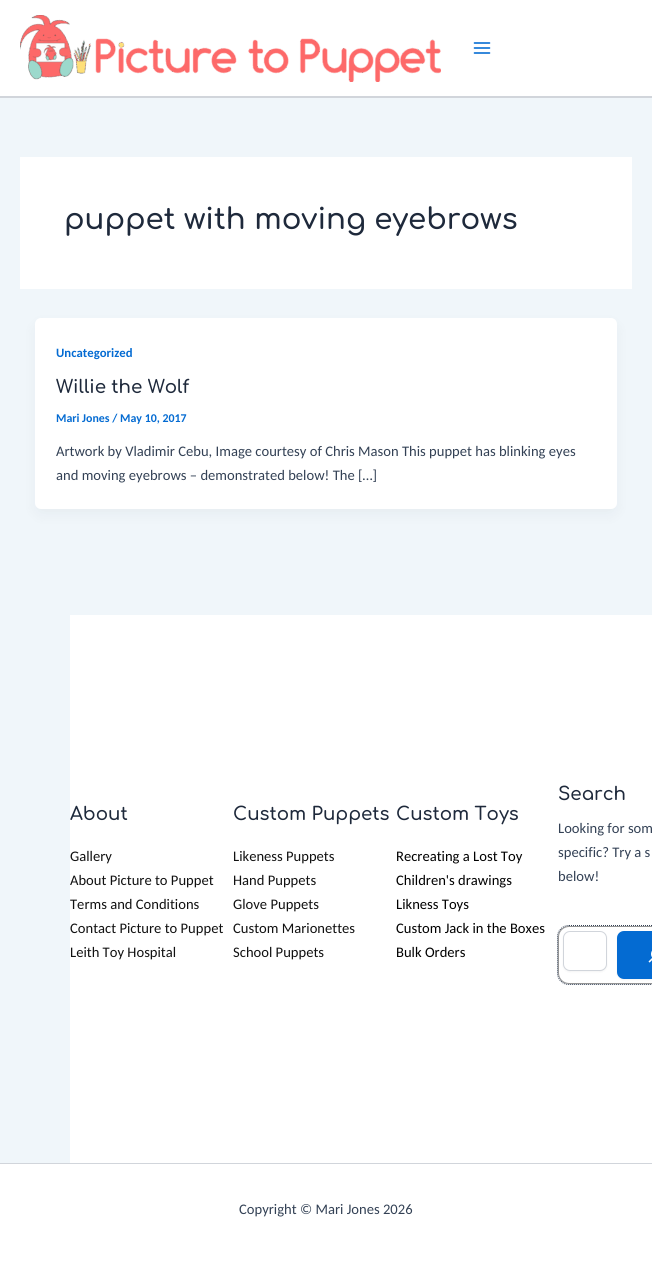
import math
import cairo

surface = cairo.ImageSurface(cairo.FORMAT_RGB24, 652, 1264)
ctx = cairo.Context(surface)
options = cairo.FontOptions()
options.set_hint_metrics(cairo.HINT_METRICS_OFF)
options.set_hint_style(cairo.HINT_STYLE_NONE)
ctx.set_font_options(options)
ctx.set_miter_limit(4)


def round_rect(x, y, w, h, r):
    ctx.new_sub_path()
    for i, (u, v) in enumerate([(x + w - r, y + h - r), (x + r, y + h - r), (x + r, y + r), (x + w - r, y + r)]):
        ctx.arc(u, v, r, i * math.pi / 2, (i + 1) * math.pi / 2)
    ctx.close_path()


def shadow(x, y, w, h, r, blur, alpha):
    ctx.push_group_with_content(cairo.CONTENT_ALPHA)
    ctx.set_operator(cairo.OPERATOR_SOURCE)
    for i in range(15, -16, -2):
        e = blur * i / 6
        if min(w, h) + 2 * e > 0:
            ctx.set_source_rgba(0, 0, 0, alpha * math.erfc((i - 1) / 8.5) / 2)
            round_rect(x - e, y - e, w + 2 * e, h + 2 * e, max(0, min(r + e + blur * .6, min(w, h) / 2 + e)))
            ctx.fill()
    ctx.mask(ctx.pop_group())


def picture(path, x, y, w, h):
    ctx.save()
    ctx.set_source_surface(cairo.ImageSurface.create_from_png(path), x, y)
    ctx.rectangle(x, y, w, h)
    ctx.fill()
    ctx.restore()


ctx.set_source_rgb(0.941, 0.961, 0.98)
ctx.paint()
ctx.set_source_rgb(1, 1, 1)
ctx.rectangle(0, 0, 652, 96)
ctx.fill()
ctx.set_source_rgb(0.82, 0.835, 0.859)
ctx.rectangle(0, 96, 652, 2)
ctx.fill()
picture("img1.png", 20, 15, 421, 67)
picture("img2.png", 473, 42, 18, 12)
ctx.set_source_rgb(1, 1, 1)
ctx.rectangle(20, 157, 612, 132)
ctx.fill()
ctx.select_font_face("Comfortaa SemiBold")
ctx.set_font_size(29.2)
ctx.set_source_rgb(0.118, 0.161, 0.231)
ctx.move_to(64, 229)
ctx.show_text("puppet with moving eyebrows")
ctx.set_source_rgb(0.063, 0.094, 0.157)
shadow(37, 326, 578, 187, 4, 7.5, 0.05)
ctx.set_source_rgb(1, 1, 1)
round_rect(35, 318, 582, 191, 6)
ctx.fill()
ctx.select_font_face("Carlito", cairo.FONT_SLANT_NORMAL, cairo.FONT_WEIGHT_BOLD)
ctx.set_font_size(12.75)
ctx.set_source_rgb(0.016, 0.42, 0.824)
ctx.move_to(56, 357)
ctx.show_text("Uncategorized")
ctx.select_font_face("Comfortaa SemiBold")
ctx.set_font_size(18.25)
ctx.set_source_rgb(0.118, 0.161, 0.231)
ctx.move_to(56, 393)
ctx.show_text("Willie the Wolf")
ctx.select_font_face("Carlito", cairo.FONT_SLANT_NORMAL, cairo.FONT_WEIGHT_BOLD)
ctx.set_font_size(11.9)
ctx.set_source_rgb(0.016, 0.42, 0.824)
ctx.move_to(56, 422)
ctx.show_text("Mari Jones / May 10, 2017")
ctx.select_font_face("Carlito")
ctx.set_font_size(14.6)
ctx.set_source_rgb(0.2, 0.255, 0.333)
ctx.move_to(56, 456)
ctx.show_text("Artwork by Vladimir Cebu, Image courtesy of Chris Mason This puppet has blinking eyes")
ctx.move_to(56, 480)
ctx.show_text("and moving eyebrows – demonstrated below! The […]")
ctx.set_source_rgb(1, 1, 1)
ctx.rectangle(70, 615, 582, 548)
ctx.fill()
ctx.select_font_face("Comfortaa SemiBold")
ctx.set_font_size(18.25)
ctx.set_source_rgb(0.118, 0.161, 0.231)
ctx.move_to(70, 820)
ctx.show_text("About")
ctx.select_font_face("Carlito")
ctx.set_font_size(14.6)
ctx.set_source_rgb(0.067, 0.067, 0.067)
ctx.move_to(70, 861)
ctx.show_text("Gallery")
ctx.move_to(70, 885)
ctx.show_text("About Picture to Puppet")
ctx.move_to(70, 909)
ctx.show_text("Terms and Conditions")
ctx.move_to(70, 933)
ctx.show_text("Contact Picture to Puppet")
ctx.move_to(70, 957)
ctx.show_text("Leith Toy Hospital")
ctx.select_font_face("Comfortaa SemiBold")
ctx.set_font_size(18.25)
ctx.set_source_rgb(0.118, 0.161, 0.231)
ctx.move_to(233, 820)
ctx.show_text("Custom Puppets")
ctx.select_font_face("Carlito")
ctx.set_font_size(14.6)
ctx.set_source_rgb(0.067, 0.067, 0.067)
ctx.move_to(233, 861)
ctx.show_text("Likeness Puppets")
ctx.move_to(233, 885)
ctx.show_text("Hand Puppets")
ctx.move_to(233, 909)
ctx.show_text("Glove Puppets")
ctx.move_to(233, 933)
ctx.show_text("Custom Marionettes")
ctx.move_to(233, 957)
ctx.show_text("School Puppets")
ctx.select_font_face("Comfortaa SemiBold")
ctx.set_font_size(18.25)
ctx.set_source_rgb(0.118, 0.161, 0.231)
ctx.move_to(396, 820)
ctx.show_text("Custom Toys")
ctx.select_font_face("Carlito")
ctx.set_font_size(14.6)
ctx.set_source_rgb(0, 0, 0)
ctx.move_to(396, 861)
ctx.show_text("Recreating a Lost Toy")
ctx.move_to(396, 885)
ctx.show_text("Children's drawings")
ctx.move_to(396, 909)
ctx.show_text("Likness Toys")
ctx.move_to(396, 933)
ctx.show_text("Custom Jack in the Boxes")
ctx.move_to(396, 957)
ctx.show_text("Bulk Orders")
ctx.select_font_face("Comfortaa SemiBold")
ctx.set_font_size(18.25)
ctx.set_source_rgb(0.118, 0.161, 0.231)
ctx.move_to(558, 800)
ctx.show_text("Search")
ctx.select_font_face("Carlito")
ctx.set_font_size(14.6)
ctx.set_source_rgb(0.2, 0.255, 0.333)
ctx.move_to(558, 833)
ctx.show_text("Looking for som")
ctx.move_to(558, 857)
ctx.show_text("specific? Try a s")
ctx.move_to(558, 881)
ctx.show_text("below!")
round_rect(558.5, 926.5, 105, 57, 10.5)
ctx.set_source_rgb(0.58, 0.58, 0.58)
ctx.set_line_width(1)
ctx.stroke()
ctx.set_source_rgb(0, 0, 0)
shadow(563, 932, 44, 40, 7, 1, 0.05)
ctx.set_source_rgb(1, 1, 1)
round_rect(563.5, 931.5, 43, 39, 6.5)
ctx.fill_preserve()
ctx.set_source_rgb(0.82, 0.835, 0.859)
ctx.stroke()
ctx.set_source_rgb(0, 0, 0)
shadow(617, 932, 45, 48, 7, 1, 0.05)
ctx.set_source_rgb(0.016, 0.42, 0.824)
round_rect(617, 931, 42, 48, 7)
ctx.fill()
ctx.new_path()
ctx.move_to(569, 925.5)
ctx.line_to(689, 925.5)
ctx.curve_to(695.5, 925.5, 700.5, 930.5, 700.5, 937)
ctx.line_to(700.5, 973)
ctx.curve_to(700.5, 979.5, 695.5, 984.5, 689, 984.5)
ctx.line_to(569, 984.5)
ctx.curve_to(562.5, 984.5, 557.5, 979.5, 557.5, 973)
ctx.line_to(557.5, 937)
ctx.curve_to(557.5, 930.5, 562.5, 925.5, 569, 925.5)
ctx.close_path()
ctx.set_source_rgb(0.2, 0.255, 0.333)
ctx.set_dash([1, 1])
ctx.stroke()
picture("img3.png", 648, 950, 4, 13)
ctx.set_source_rgb(1, 1, 1)
ctx.rectangle(0, 1164, 652, 100)
ctx.fill()
ctx.set_source_rgb(0.82, 0.835, 0.859)
ctx.rectangle(0, 1163, 652, 1)
ctx.fill()
ctx.set_source_rgb(0.2, 0.255, 0.333)
ctx.move_to(239, 1214)
ctx.show_text("Copyright © Mari Jones 2026")
surface.write_to_png("page.png")
